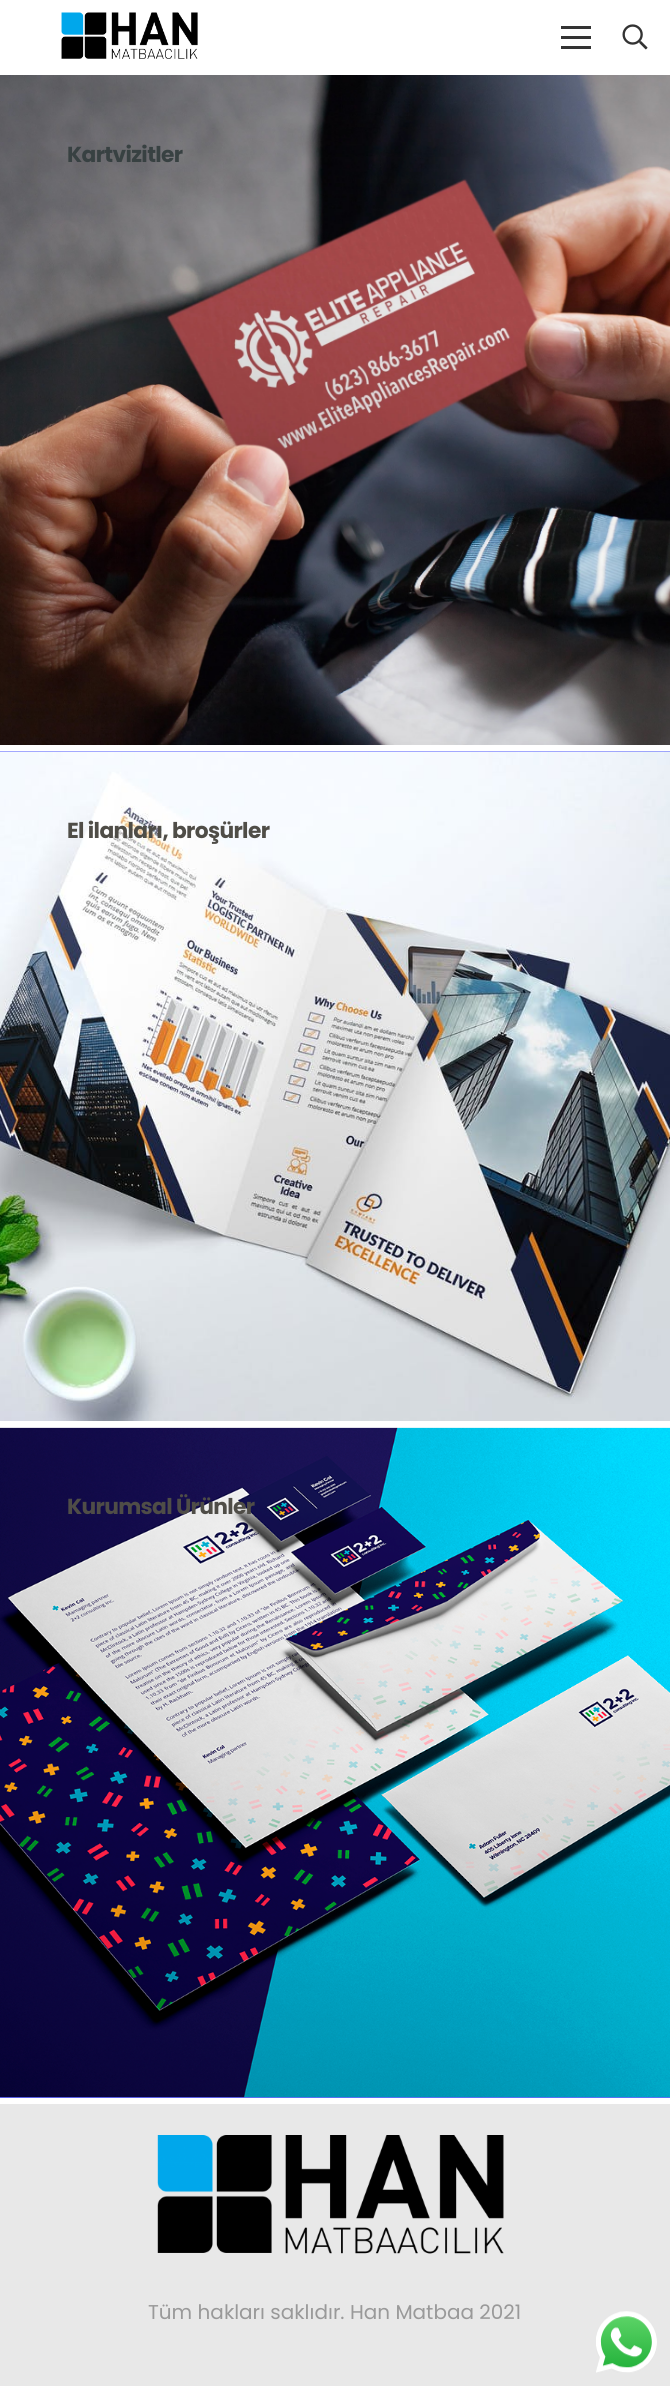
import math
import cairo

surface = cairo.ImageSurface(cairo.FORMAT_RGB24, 670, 2386)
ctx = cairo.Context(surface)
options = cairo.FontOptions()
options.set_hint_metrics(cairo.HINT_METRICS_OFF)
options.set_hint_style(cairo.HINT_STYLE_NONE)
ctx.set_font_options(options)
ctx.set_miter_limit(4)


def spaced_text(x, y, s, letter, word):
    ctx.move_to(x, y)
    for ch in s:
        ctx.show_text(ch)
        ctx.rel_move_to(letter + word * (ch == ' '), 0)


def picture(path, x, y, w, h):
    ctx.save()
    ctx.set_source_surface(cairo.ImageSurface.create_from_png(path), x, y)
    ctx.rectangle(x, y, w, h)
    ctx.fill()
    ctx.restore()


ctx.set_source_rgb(1, 1, 1)
ctx.paint()
picture("img1.png", 61, 12, 137, 47)
ctx.set_source_rgb(0.2, 0.2, 0.2)
ctx.rectangle(561, 36, 30, 3)
ctx.fill()
ctx.rectangle(561, 26, 30, 3)
ctx.fill()
ctx.rectangle(561, 46, 30, 3)
ctx.fill()
picture("img2.png", 622, 24, 26, 26)
picture("img3.png", 0, 75, 670, 670)
ctx.select_font_face("Poppins", cairo.FONT_SLANT_NORMAL, cairo.FONT_WEIGHT_BOLD)
ctx.set_font_size(21.75)
ctx.set_source_rgb(0.22, 0.255, 0.259)
spaced_text(67, 162, "Kartvizitler", -0.65, 0)
ctx.set_source_rgb(0.392, 0.424, 0.992)
ctx.rectangle(0, 751, 670, 1)
ctx.fill()
picture("img4.png", 0, 751, 670, 670)
ctx.set_source_rgb(0.31, 0.302, 0.278)
spaced_text(67, 838, "El ilanları, broşürler", -0.65, 0)
ctx.set_source_rgb(0.392, 0.424, 0.992)
ctx.rectangle(0, 2097, 670, 1)
ctx.fill()
picture("img5.png", 0, 1427, 670, 671)
ctx.set_source_rgb(0.31, 0.302, 0.278)
spaced_text(67, 1514, "Kurumsal Ürünler", -0.65, 0)
ctx.set_source_rgb(0.91, 0.91, 0.91)
ctx.rectangle(0, 2104, 670, 282)
ctx.fill()
picture("img6.png", 157, 2135, 347, 119)
ctx.select_font_face("Poppins")
ctx.set_font_size(20)
ctx.set_source_rgb(0.6, 0.6, 0.6)
ctx.move_to(148, 2319)
ctx.show_text("Tüm hakları saklıdır. Han Matbaa 2021")
picture("img7.png", 596, 2311, 61, 62)
surface.write_to_png("page.png")
